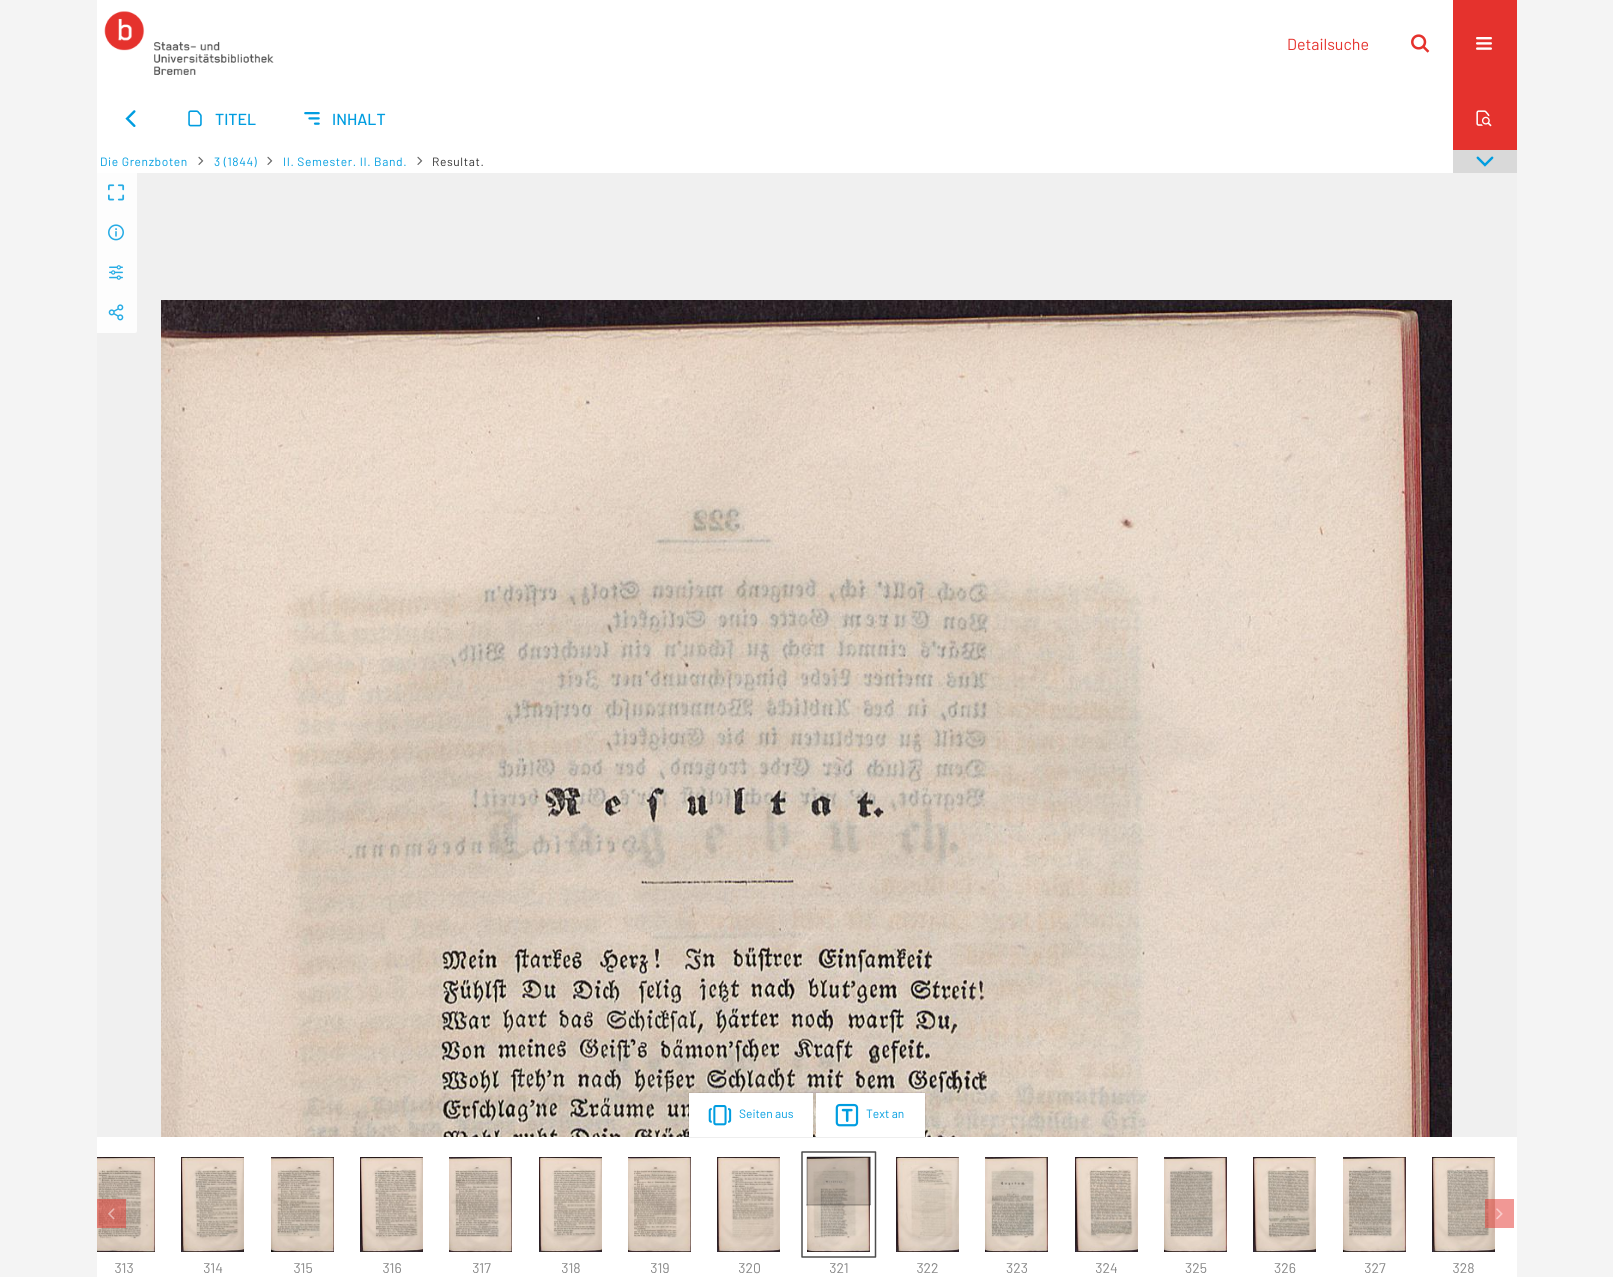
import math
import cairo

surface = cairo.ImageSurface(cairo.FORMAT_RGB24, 1613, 1277)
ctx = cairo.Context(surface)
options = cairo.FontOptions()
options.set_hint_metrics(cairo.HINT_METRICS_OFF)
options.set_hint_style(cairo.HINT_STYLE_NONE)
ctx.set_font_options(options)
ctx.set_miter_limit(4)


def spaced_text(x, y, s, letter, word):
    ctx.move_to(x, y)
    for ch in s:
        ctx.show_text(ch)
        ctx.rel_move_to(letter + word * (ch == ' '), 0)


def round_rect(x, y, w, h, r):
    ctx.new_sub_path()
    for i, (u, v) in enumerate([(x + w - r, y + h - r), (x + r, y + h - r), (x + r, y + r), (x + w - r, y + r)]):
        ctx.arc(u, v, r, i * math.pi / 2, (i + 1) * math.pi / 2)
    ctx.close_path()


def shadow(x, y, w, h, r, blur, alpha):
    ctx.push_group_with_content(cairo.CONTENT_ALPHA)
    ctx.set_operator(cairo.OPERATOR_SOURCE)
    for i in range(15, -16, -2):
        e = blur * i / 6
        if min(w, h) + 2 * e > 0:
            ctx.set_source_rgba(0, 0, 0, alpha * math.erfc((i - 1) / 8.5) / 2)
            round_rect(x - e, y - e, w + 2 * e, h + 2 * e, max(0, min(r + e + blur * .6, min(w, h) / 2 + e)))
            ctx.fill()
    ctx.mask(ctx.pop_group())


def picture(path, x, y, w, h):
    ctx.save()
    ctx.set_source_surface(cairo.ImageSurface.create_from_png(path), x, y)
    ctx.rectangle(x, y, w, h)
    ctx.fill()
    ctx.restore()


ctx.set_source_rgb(0.957, 0.957, 0.957)
ctx.paint()
ctx.set_source_rgb(1, 1, 1)
ctx.rectangle(97, 0, 1356, 173)
ctx.fill()
picture("img1.png", 104, 11, 170, 64)
ctx.select_font_face("Barlow")
ctx.set_font_size(16)
ctx.set_source_rgb(0.898, 0.196, 0.176)
ctx.move_to(1287, 50)
ctx.show_text("Detailsuche")
picture("img2.png", 1411, 34, 19, 19)
ctx.rectangle(1453, 0, 64, 150)
ctx.fill()
picture("img3.png", 1476, 37, 16, 13)
picture("img4.png", 125, 110, 11, 17)
picture("img5.png", 188, 110, 14, 17)
ctx.select_font_face("Barlow Medium")
ctx.set_source_rgb(0, 0.616, 0.878)
ctx.move_to(215, 125)
ctx.show_text("TITEL")
picture("img6.png", 304, 112, 16, 13)
ctx.move_to(332, 125)
ctx.show_text("INHALT")
picture("img7.png", 1476, 110, 16, 17)
ctx.select_font_face("Barlow")
ctx.set_font_size(12)
spaced_text(100, 166, "Die Grenzboten", 0.6, 0)
picture("img8.png", 198, 156, 6, 9)
spaced_text(214, 166, "3 (1844)", 0.6, 0)
picture("img8.png", 267, 156, 6, 9)
spaced_text(283, 166, "II. Semester. II. Band.", 0.6, 0)
picture("img8.png", 417, 156, 6, 9)
ctx.set_source_rgb(0.2, 0.2, 0.2)
spaced_text(432, 166, "Resultat.", 0.6, 0)
ctx.set_source_rgb(0.851, 0.851, 0.851)
ctx.rectangle(1453, 150, 64, 23)
ctx.fill()
picture("img9.png", 1476, 156, 18, 11)
ctx.set_source_rgb(0.941, 0.941, 0.941)
ctx.rectangle(97, 173, 1420, 964)
ctx.fill()
ctx.set_source_rgb(0.992, 0.992, 0.992)
ctx.rectangle(97, 173, 40, 120)
ctx.fill()
picture("img10.png", 108, 184, 17, 17)
picture("img11.png", 108, 224, 16, 17)
picture("img12.png", 109, 265, 14, 15)
ctx.new_path()
ctx.move_to(97, 293)
ctx.line_to(137, 293)
ctx.line_to(137, 331)
ctx.curve_to(137, 332, 136, 333, 135, 333)
ctx.line_to(97, 333)
ctx.close_path()
ctx.fill()
picture("img13.png", 108, 304, 16, 17)
picture("img14.png", 161, 300, 1291, 837)
ctx.set_source_rgb(1, 1, 1)
ctx.rectangle(97, 1137, 1420, 140)
ctx.fill()
ctx.save()
ctx.set_fill_rule(cairo.FILL_RULE_EVEN_ODD)
ctx.new_path()
ctx.move_to(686, 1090)
ctx.line_to(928, 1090)
ctx.line_to(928, 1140)
ctx.line_to(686, 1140)
ctx.close_path()
ctx.move_to(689, 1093)
ctx.line_to(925, 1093)
ctx.line_to(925, 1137)
ctx.line_to(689, 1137)
ctx.close_path()
ctx.clip()
ctx.set_source_rgb(0, 0, 0)
shadow(689, 1093, 236, 44, 0, 0.5, 0.27)
ctx.restore()
ctx.rectangle(689, 1093, 124, 44)
ctx.fill()
picture("img15.png", 708, 1105, 24, 21)
ctx.set_source_rgb(0, 0.616, 0.878)
ctx.move_to(739, 1118)
ctx.show_text("Seiten aus")
ctx.set_source_rgb(1, 1, 1)
ctx.rectangle(816, 1093, 109, 44)
ctx.fill()
picture("img16.png", 835, 1103, 24, 24)
ctx.set_source_rgb(0, 0.616, 0.878)
ctx.move_to(866, 1118)
ctx.show_text("Text an")
picture("img17.png", 97, 1151, 1398, 123)
ctx.set_source_rgba(0.898, 0.196, 0.176, 0.5)
ctx.rectangle(97, 1199, 29, 29)
ctx.fill()
picture("img18.png", 108, 1208, 7, 12)
ctx.rectangle(1485, 1199, 29, 29)
ctx.fill()
picture("img19.png", 1496, 1208, 7, 12)
surface.write_to_png("page.png")
